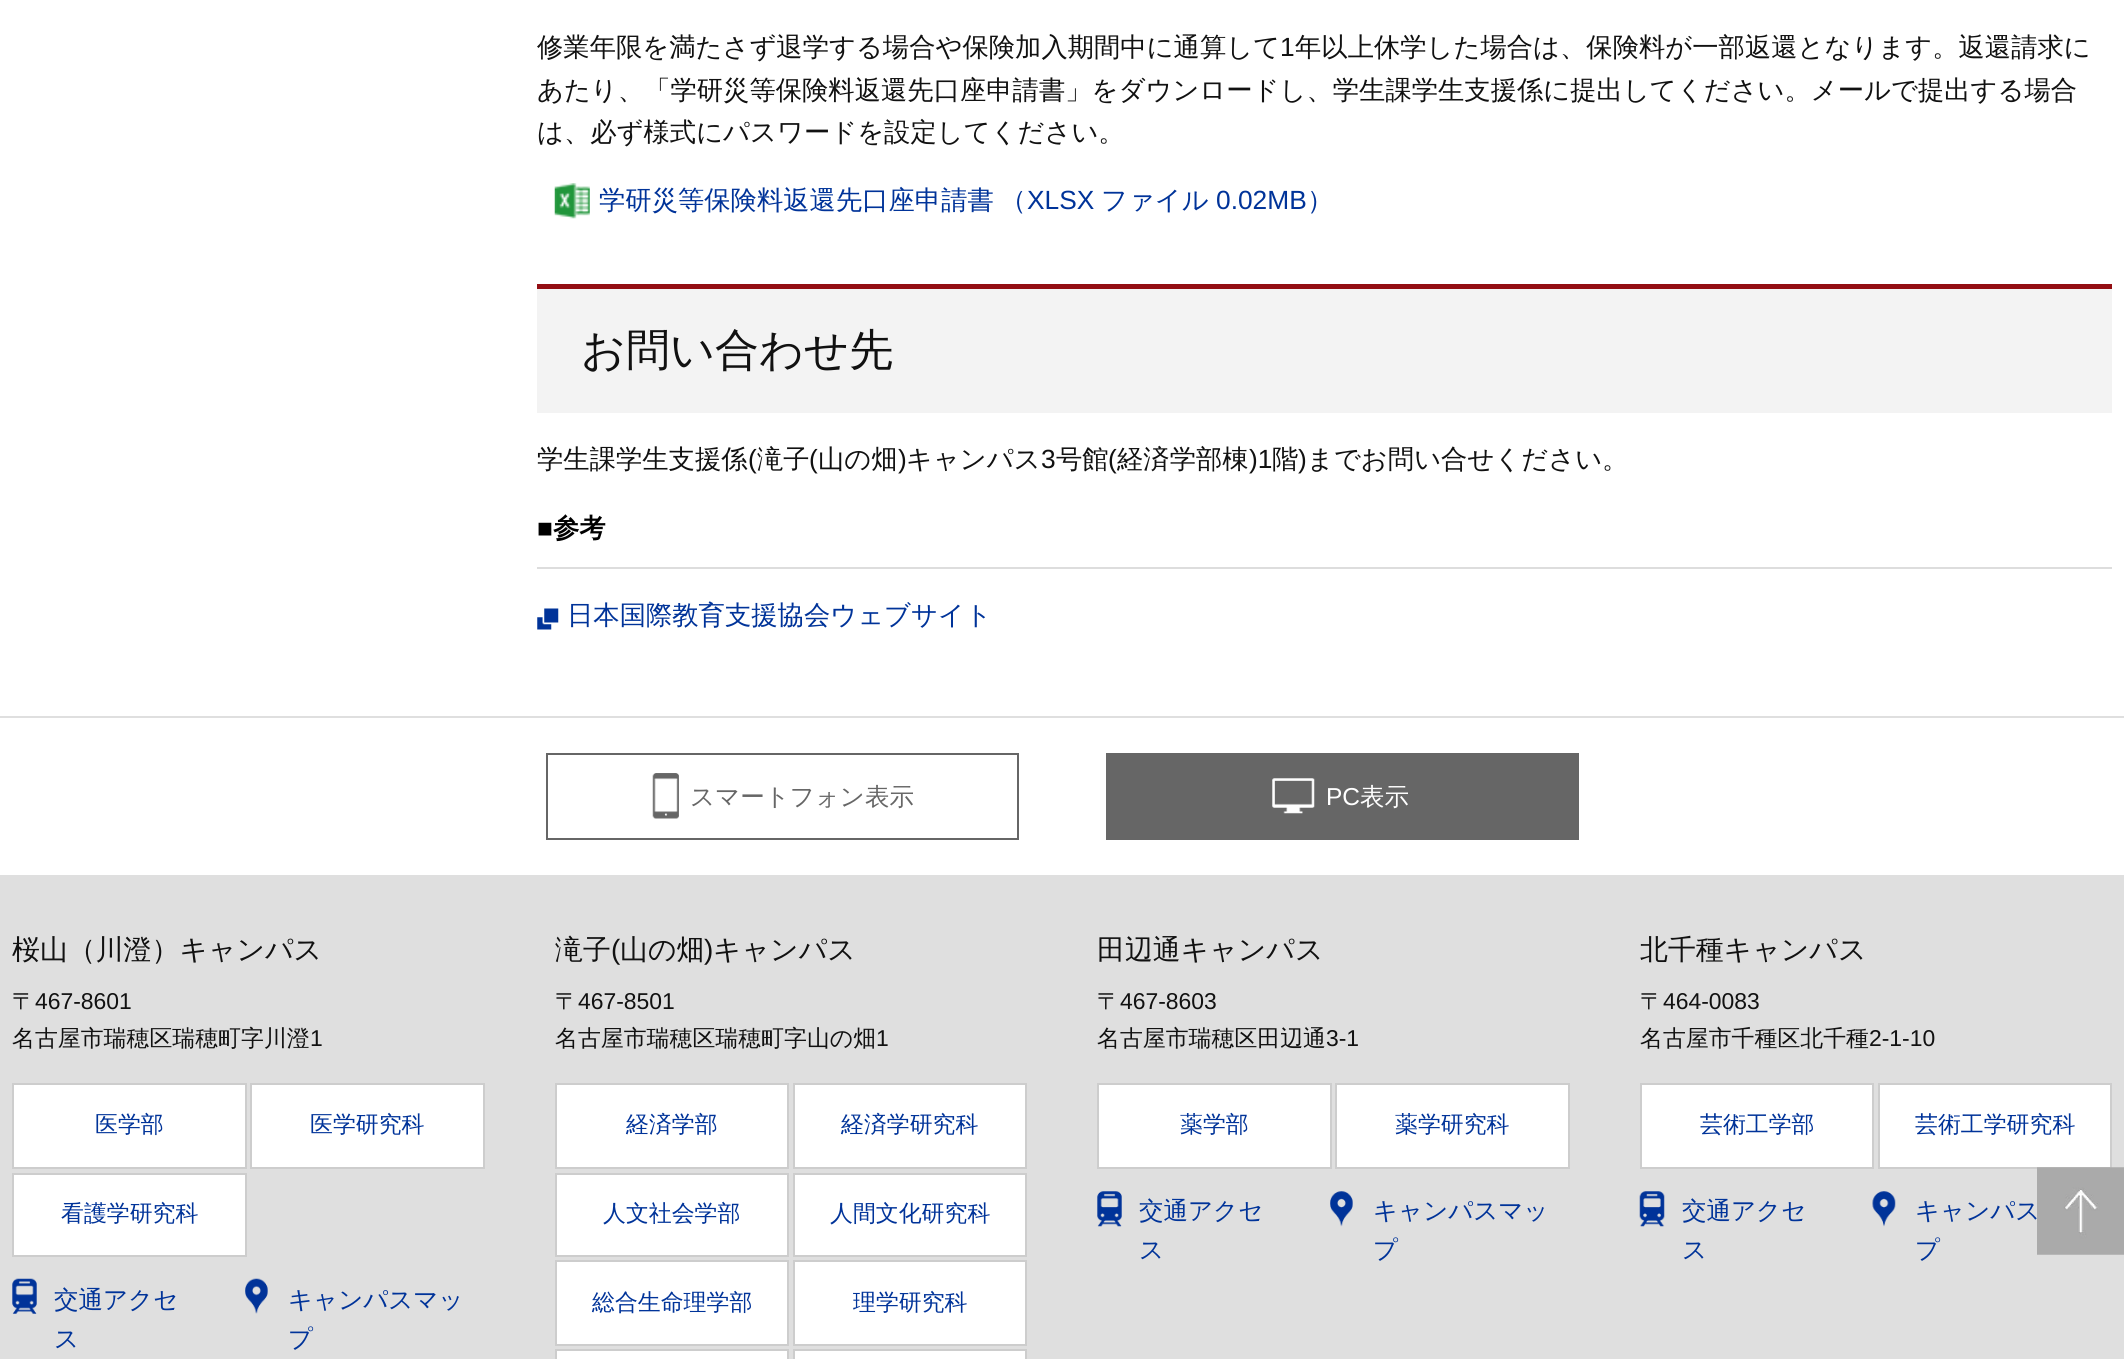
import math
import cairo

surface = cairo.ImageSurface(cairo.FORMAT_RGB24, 2124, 1359)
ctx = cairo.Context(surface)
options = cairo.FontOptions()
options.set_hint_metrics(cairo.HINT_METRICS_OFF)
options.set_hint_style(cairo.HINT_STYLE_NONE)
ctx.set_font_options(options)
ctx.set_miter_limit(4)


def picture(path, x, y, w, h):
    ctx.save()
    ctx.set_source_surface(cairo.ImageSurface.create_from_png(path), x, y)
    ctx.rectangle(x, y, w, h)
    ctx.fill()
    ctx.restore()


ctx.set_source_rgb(1, 1, 1)
ctx.paint()
ctx.select_font_face("WenQuanYi Zen Hei Medium")
ctx.set_font_size(26.32)
ctx.set_source_rgb(0.067, 0.067, 0.067)
ctx.move_to(537, 56)
ctx.show_text("修業年限を満たさず退学する場合や保険加入期間中に通算して")
ctx.select_font_face("Liberation Sans")
ctx.move_to(1280, 56)
ctx.show_text("1")
ctx.select_font_face("WenQuanYi Zen Hei Medium")
ctx.move_to(1295, 56)
ctx.show_text("年以上休学した場合は、保険料が一部返還となります。返還請求に")
ctx.move_to(537, 99)
ctx.show_text("あたり、「学研災等保険料返還先口座申請書」をダウンロードし、学生課学生支援係に提出してください。メールで提出する場合")
ctx.move_to(537, 141)
ctx.show_text("は、必ず様式にパスワードを設定してください。")
picture("img1.png", 554, 183, 36, 36)
ctx.set_source_rgb(0, 0.2, 0.6)
ctx.move_to(599, 209)
ctx.show_text("学研災等保険料返還先口座申請書")
ctx.move_to(1000, 209)
ctx.show_text("（")
ctx.select_font_face("Liberation Sans")
ctx.move_to(1027, 209)
ctx.show_text("XLSX")
ctx.select_font_face("WenQuanYi Zen Hei Medium")
ctx.move_to(1101, 209)
ctx.show_text("ファイル")
ctx.select_font_face("Liberation Sans")
ctx.move_to(1216, 209)
ctx.show_text("0.02MB")
ctx.select_font_face("WenQuanYi Zen Hei Medium")
ctx.move_to(1307, 209)
ctx.show_text("）")
ctx.set_source_rgb(0.953, 0.953, 0.953)
ctx.rectangle(537, 289, 1575, 124)
ctx.fill()
ctx.set_source_rgb(0.576, 0.055, 0.078)
ctx.rectangle(537, 284, 1575, 5)
ctx.fill()
ctx.set_font_size(44)
ctx.set_source_rgb(0.067, 0.067, 0.067)
ctx.move_to(581, 365)
ctx.show_text("お問い合わせ先")
ctx.set_font_size(26.32)
ctx.move_to(537, 468)
ctx.show_text("学生課学生支援係")
ctx.select_font_face("Liberation Sans")
ctx.move_to(748, 468)
ctx.show_text("(")
ctx.select_font_face("WenQuanYi Zen Hei Medium")
ctx.move_to(757, 468)
ctx.show_text("滝子")
ctx.select_font_face("Liberation Sans")
ctx.move_to(809, 468)
ctx.show_text("(")
ctx.select_font_face("WenQuanYi Zen Hei Medium")
ctx.move_to(818, 468)
ctx.show_text("山の畑")
ctx.select_font_face("Liberation Sans")
ctx.move_to(898, 468)
ctx.show_text(")")
ctx.select_font_face("WenQuanYi Zen Hei Medium")
ctx.move_to(906, 468)
ctx.show_text("キャンパス")
ctx.select_font_face("Liberation Sans")
ctx.move_to(1041, 468)
ctx.show_text("3")
ctx.select_font_face("WenQuanYi Zen Hei Medium")
ctx.move_to(1056, 468)
ctx.show_text("号館")
ctx.select_font_face("Liberation Sans")
ctx.move_to(1108, 468)
ctx.show_text("(")
ctx.select_font_face("WenQuanYi Zen Hei Medium")
ctx.move_to(1117, 468)
ctx.show_text("経済学部棟")
ctx.select_font_face("Liberation Sans")
ctx.move_to(1249, 468)
ctx.show_text(")1")
ctx.select_font_face("WenQuanYi Zen Hei Medium")
ctx.move_to(1272, 468)
ctx.show_text("階")
ctx.select_font_face("Liberation Sans")
ctx.move_to(1298, 468)
ctx.show_text(")")
ctx.select_font_face("WenQuanYi Zen Hei Medium")
ctx.move_to(1307, 468)
ctx.show_text("までお問い合せください。")
ctx.select_font_face("Liberation Sans", cairo.FONT_SLANT_NORMAL, cairo.FONT_WEIGHT_BOLD)
ctx.set_source_rgb(0, 0, 0)
ctx.move_to(537, 537)
ctx.show_text("■")
ctx.select_font_face("WenQuanYi Zen Hei", cairo.FONT_SLANT_NORMAL, cairo.FONT_WEIGHT_BOLD)
ctx.move_to(553, 537)
ctx.show_text("参考")
ctx.set_source_rgb(0.867, 0.867, 0.867)
ctx.rectangle(537, 567, 1575, 2)
ctx.fill()
picture("img2.png", 537, 608, 22, 22)
ctx.select_font_face("WenQuanYi Zen Hei Medium")
ctx.set_source_rgb(0, 0.2, 0.6)
ctx.move_to(567, 624)
ctx.show_text("日本国際教育支援協会ウェブサイト")
ctx.set_source_rgb(0.875, 0.875, 0.875)
ctx.rectangle(0, 716, 2124, 2)
ctx.fill()
picture("img3.png", 652, 773, 27, 46)
ctx.rectangle(547, 754, 471, 85)
ctx.set_source_rgb(0.4, 0.4, 0.4)
ctx.stroke()
ctx.set_font_size(24.5)
ctx.move_to(690, 805)
ctx.show_text("スマートフォン表示")
ctx.rectangle(1106, 753, 473, 87)
ctx.fill()
picture("img4.png", 1272, 778, 43, 36)
ctx.select_font_face("Liberation Sans")
ctx.set_source_rgb(1, 1, 1)
ctx.move_to(1326, 805)
ctx.show_text("PC")
ctx.select_font_face("WenQuanYi Zen Hei Medium")
ctx.move_to(1360, 805)
ctx.show_text("表示")
ctx.set_source_rgb(0.875, 0.875, 0.875)
ctx.rectangle(0, 875, 2124, 484)
ctx.fill()
ctx.set_font_size(27.9)
ctx.set_source_rgb(0.067, 0.067, 0.067)
ctx.move_to(12, 959)
ctx.show_text("桜山（川澄）キャンパス")
ctx.set_font_size(22.9)
ctx.move_to(12, 1009)
ctx.show_text("〒")
ctx.select_font_face("Liberation Sans")
ctx.move_to(35, 1009)
ctx.show_text("467-8601")
ctx.select_font_face("WenQuanYi Zen Hei Medium")
ctx.move_to(12, 1046)
ctx.show_text("名古屋市瑞穂区瑞穂町字川澄")
ctx.select_font_face("Liberation Sans")
ctx.move_to(310, 1046)
ctx.show_text("1")
ctx.set_source_rgb(1, 1, 1)
ctx.rectangle(13, 1084, 233, 84)
ctx.fill_preserve()
ctx.set_source_rgb(0.804, 0.804, 0.804)
ctx.stroke()
ctx.select_font_face("WenQuanYi Zen Hei Medium")
ctx.set_source_rgb(0, 0.2, 0.6)
ctx.move_to(95, 1132)
ctx.show_text("医学部")
ctx.set_source_rgb(1, 1, 1)
ctx.rectangle(251, 1084, 233, 84)
ctx.fill_preserve()
ctx.set_source_rgb(0.804, 0.804, 0.804)
ctx.stroke()
ctx.set_source_rgb(0, 0.2, 0.6)
ctx.move_to(310, 1132)
ctx.show_text("医学研究科")
ctx.set_source_rgb(1, 1, 1)
ctx.rectangle(13, 1174, 233, 82)
ctx.fill_preserve()
ctx.set_source_rgb(0.804, 0.804, 0.804)
ctx.stroke()
ctx.set_source_rgb(0, 0.2, 0.6)
ctx.move_to(61, 1221)
ctx.show_text("看護学研究科")
picture("img5.png", 12, 1278, 25, 36)
ctx.set_font_size(24.5)
ctx.move_to(54, 1308)
ctx.show_text("交通アクセ")
ctx.move_to(54, 1347)
ctx.show_text("ス")
picture("img6.png", 245, 1278, 23, 36)
ctx.move_to(288, 1308)
ctx.show_text("キャンパスマッ")
ctx.move_to(288, 1347)
ctx.show_text("プ")
ctx.set_font_size(27.9)
ctx.set_source_rgb(0.067, 0.067, 0.067)
ctx.move_to(555, 959)
ctx.show_text("滝子")
ctx.select_font_face("Liberation Sans")
ctx.move_to(611, 959)
ctx.show_text("(")
ctx.select_font_face("WenQuanYi Zen Hei Medium")
ctx.move_to(620, 959)
ctx.show_text("山の畑")
ctx.select_font_face("Liberation Sans")
ctx.move_to(704, 959)
ctx.show_text(")")
ctx.select_font_face("WenQuanYi Zen Hei Medium")
ctx.move_to(713, 959)
ctx.show_text("キャンパス")
ctx.set_font_size(22.9)
ctx.move_to(555, 1009)
ctx.show_text("〒")
ctx.select_font_face("Liberation Sans")
ctx.move_to(578, 1009)
ctx.show_text("467-8501")
ctx.select_font_face("WenQuanYi Zen Hei Medium")
ctx.move_to(555, 1046)
ctx.show_text("名古屋市瑞穂区瑞穂町字山の畑")
ctx.select_font_face("Liberation Sans")
ctx.move_to(876, 1046)
ctx.show_text("1")
ctx.set_source_rgb(1, 1, 1)
ctx.rectangle(556, 1084, 232, 84)
ctx.fill_preserve()
ctx.set_source_rgb(0.804, 0.804, 0.804)
ctx.stroke()
ctx.select_font_face("WenQuanYi Zen Hei Medium")
ctx.set_source_rgb(0, 0.2, 0.6)
ctx.move_to(626, 1132)
ctx.show_text("経済学部")
ctx.set_source_rgb(1, 1, 1)
ctx.rectangle(794, 1084, 232, 84)
ctx.fill_preserve()
ctx.set_source_rgb(0.804, 0.804, 0.804)
ctx.stroke()
ctx.set_source_rgb(0, 0.2, 0.6)
ctx.move_to(841, 1132)
ctx.show_text("経済学研究科")
ctx.set_source_rgb(1, 1, 1)
ctx.rectangle(556, 1174, 232, 82)
ctx.fill_preserve()
ctx.set_source_rgb(0.804, 0.804, 0.804)
ctx.stroke()
ctx.set_source_rgb(0, 0.2, 0.6)
ctx.move_to(603, 1221)
ctx.show_text("人文社会学部")
ctx.set_source_rgb(1, 1, 1)
ctx.rectangle(794, 1174, 232, 82)
ctx.fill_preserve()
ctx.set_source_rgb(0.804, 0.804, 0.804)
ctx.stroke()
ctx.set_source_rgb(0, 0.2, 0.6)
ctx.move_to(830, 1221)
ctx.show_text("人間文化研究科")
ctx.set_source_rgb(1, 1, 1)
ctx.rectangle(556, 1261, 232, 84)
ctx.fill_preserve()
ctx.set_source_rgb(0.804, 0.804, 0.804)
ctx.stroke()
ctx.set_source_rgb(0, 0.2, 0.6)
ctx.move_to(592, 1310)
ctx.show_text("総合生命理学部")
ctx.set_source_rgb(1, 1, 1)
ctx.rectangle(794, 1261, 232, 84)
ctx.fill_preserve()
ctx.set_source_rgb(0.804, 0.804, 0.804)
ctx.stroke()
ctx.set_source_rgb(0, 0.2, 0.6)
ctx.move_to(853, 1310)
ctx.show_text("理学研究科")
ctx.set_source_rgb(1, 1, 1)
ctx.rectangle(556, 1350, 232, 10)
ctx.fill_preserve()
ctx.set_source_rgb(0.804, 0.804, 0.804)
ctx.stroke()
ctx.set_source_rgb(1, 1, 1)
ctx.rectangle(794, 1350, 232, 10)
ctx.fill_preserve()
ctx.set_source_rgb(0.804, 0.804, 0.804)
ctx.stroke()
ctx.set_font_size(27.9)
ctx.set_source_rgb(0.067, 0.067, 0.067)
ctx.move_to(1097, 959)
ctx.show_text("田辺通キャンパス")
ctx.set_font_size(22.9)
ctx.move_to(1097, 1009)
ctx.show_text("〒")
ctx.select_font_face("Liberation Sans")
ctx.move_to(1120, 1009)
ctx.show_text("467-8603")
ctx.select_font_face("WenQuanYi Zen Hei Medium")
ctx.move_to(1097, 1046)
ctx.show_text("名古屋市瑞穂区田辺通")
ctx.select_font_face("Liberation Sans")
ctx.move_to(1326, 1046)
ctx.show_text("3-1")
ctx.set_source_rgb(1, 1, 1)
ctx.rectangle(1098, 1084, 233, 84)
ctx.fill_preserve()
ctx.set_source_rgb(0.804, 0.804, 0.804)
ctx.stroke()
ctx.select_font_face("WenQuanYi Zen Hei Medium")
ctx.set_source_rgb(0, 0.2, 0.6)
ctx.move_to(1180, 1132)
ctx.show_text("薬学部")
ctx.set_source_rgb(1, 1, 1)
ctx.rectangle(1336, 1084, 233, 84)
ctx.fill_preserve()
ctx.set_source_rgb(0.804, 0.804, 0.804)
ctx.stroke()
ctx.set_source_rgb(0, 0.2, 0.6)
ctx.move_to(1395, 1132)
ctx.show_text("薬学研究科")
picture("img7.png", 1097, 1191, 25, 36)
ctx.set_font_size(24.5)
ctx.move_to(1139, 1219)
ctx.show_text("交通アクセ")
ctx.move_to(1139, 1258)
ctx.show_text("ス")
picture("img8.png", 1330, 1191, 23, 36)
ctx.move_to(1373, 1219)
ctx.show_text("キャンパスマッ")
ctx.move_to(1373, 1258)
ctx.show_text("プ")
ctx.set_font_size(27.9)
ctx.set_source_rgb(0.067, 0.067, 0.067)
ctx.move_to(1640, 959)
ctx.show_text("北千種キャンパス")
ctx.set_font_size(22.9)
ctx.move_to(1640, 1009)
ctx.show_text("〒")
ctx.select_font_face("Liberation Sans")
ctx.move_to(1663, 1009)
ctx.show_text("464-0083")
ctx.select_font_face("WenQuanYi Zen Hei Medium")
ctx.move_to(1640, 1046)
ctx.show_text("名古屋市千種区北千種")
ctx.select_font_face("Liberation Sans")
ctx.move_to(1869, 1046)
ctx.show_text("2-1-10")
ctx.set_source_rgb(1, 1, 1)
ctx.rectangle(1641, 1084, 232, 84)
ctx.fill_preserve()
ctx.set_source_rgb(0.804, 0.804, 0.804)
ctx.stroke()
ctx.select_font_face("WenQuanYi Zen Hei Medium")
ctx.set_source_rgb(0, 0.2, 0.6)
ctx.move_to(1700, 1132)
ctx.show_text("芸術工学部")
ctx.set_source_rgb(1, 1, 1)
ctx.rectangle(1879, 1084, 232, 84)
ctx.fill_preserve()
ctx.set_source_rgb(0.804, 0.804, 0.804)
ctx.stroke()
ctx.set_source_rgb(0, 0.2, 0.6)
ctx.move_to(1915, 1132)
ctx.show_text("芸術工学研究科")
picture("img9.png", 1639, 1191, 26, 36)
ctx.set_font_size(24.5)
ctx.move_to(1682, 1219)
ctx.show_text("交通アクセ")
ctx.move_to(1682, 1258)
ctx.show_text("ス")
picture("img10.png", 1872, 1191, 24, 36)
ctx.move_to(1915, 1219)
ctx.show_text("キャンパス")
ctx.move_to(1915, 1258)
ctx.show_text("プ")
picture("img11.png", 2037, 1167, 87, 88)
surface.write_to_png("page.png")
